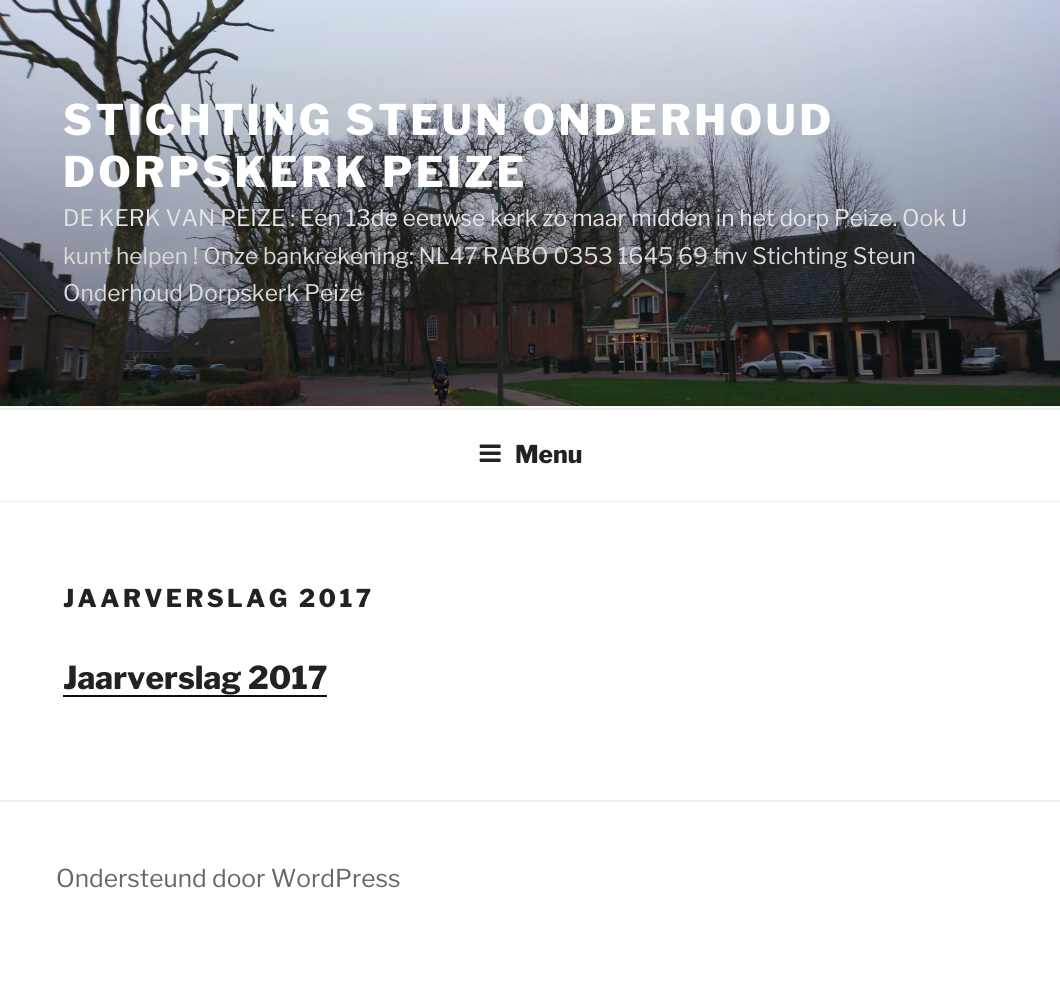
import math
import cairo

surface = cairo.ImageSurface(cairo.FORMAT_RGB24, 1060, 991)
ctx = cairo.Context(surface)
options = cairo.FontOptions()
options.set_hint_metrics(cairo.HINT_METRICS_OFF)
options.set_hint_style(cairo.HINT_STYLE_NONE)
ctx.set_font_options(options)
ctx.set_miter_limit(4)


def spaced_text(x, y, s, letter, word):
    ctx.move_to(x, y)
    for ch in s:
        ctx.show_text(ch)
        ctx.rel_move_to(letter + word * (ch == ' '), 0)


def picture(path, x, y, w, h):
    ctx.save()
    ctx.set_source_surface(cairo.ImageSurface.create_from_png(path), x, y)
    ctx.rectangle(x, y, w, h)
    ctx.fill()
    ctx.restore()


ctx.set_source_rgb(1, 1, 1)
ctx.paint()
ctx.set_source_rgb(0.98, 0.98, 0.98)
ctx.rectangle(0, 406, 1060, 2)
ctx.fill()
picture("img1.png", 0, 0, 1060, 406)
ctx.select_font_face("Libre Franklin Thin")
ctx.set_font_size(42)
ctx.set_source_rgb(1, 1, 1)
spaced_text(63, 135, "STICHTING STEUN ONDERHOUD", 3.35, 0)
spaced_text(63, 187, "DORPSKERK PEIZE", 3.35, 0)
ctx.select_font_face("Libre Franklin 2 Thin")
ctx.set_font_size(22.75)
ctx.set_source_rgb(0.886, 0.89, 0.894)
ctx.move_to(63, 226)
ctx.show_text("DE KERK VAN PEIZE :")
ctx.move_to(300, 226)
ctx.show_text("Een 13de eeuwse kerk zo maar midden in het dorp Peize. Ook")
ctx.set_source_rgb(0.914, 0.918, 0.929)
ctx.move_to(951, 226)
ctx.show_text("U")
ctx.set_source_rgb(0.851, 0.855, 0.855)
ctx.move_to(63, 264)
ctx.show_text("kunt helpen ! Onze bankrekening: NL47 RABO 0353 1645 69 tnv Stichting Steun")
ctx.move_to(63, 301)
ctx.show_text("Onderhoud Dorpskerk Peize")
ctx.set_source_rgb(0.933, 0.933, 0.933)
ctx.rectangle(0, 408, 1060, 2)
ctx.fill()
ctx.rectangle(0, 501, 1060, 1)
ctx.fill()
picture("img2.png", 479, 444, 22, 18)
ctx.select_font_face("Libre Franklin Thin")
ctx.set_font_size(24.5)
ctx.set_source_rgb(0.133, 0.133, 0.133)
ctx.move_to(515, 463)
ctx.show_text("Menu")
spaced_text(63, 607, "JAARVERSLAG 2017", 3.4, 0)
ctx.set_font_size(31.5)
ctx.move_to(63, 689)
ctx.show_text("Jaarverslag 2017")
ctx.set_source_rgb(0.059, 0.059, 0.059)
ctx.rectangle(63, 695, 264, 2)
ctx.fill()
ctx.set_source_rgb(0.933, 0.933, 0.933)
ctx.rectangle(0, 800, 1060, 2)
ctx.fill()
ctx.select_font_face("Libre Franklin 2 Thin")
ctx.set_font_size(24.5)
ctx.set_source_rgb(0.4, 0.4, 0.4)
ctx.move_to(56, 887)
ctx.show_text("Ondersteund door WordPress")
surface.write_to_png("page.png")
